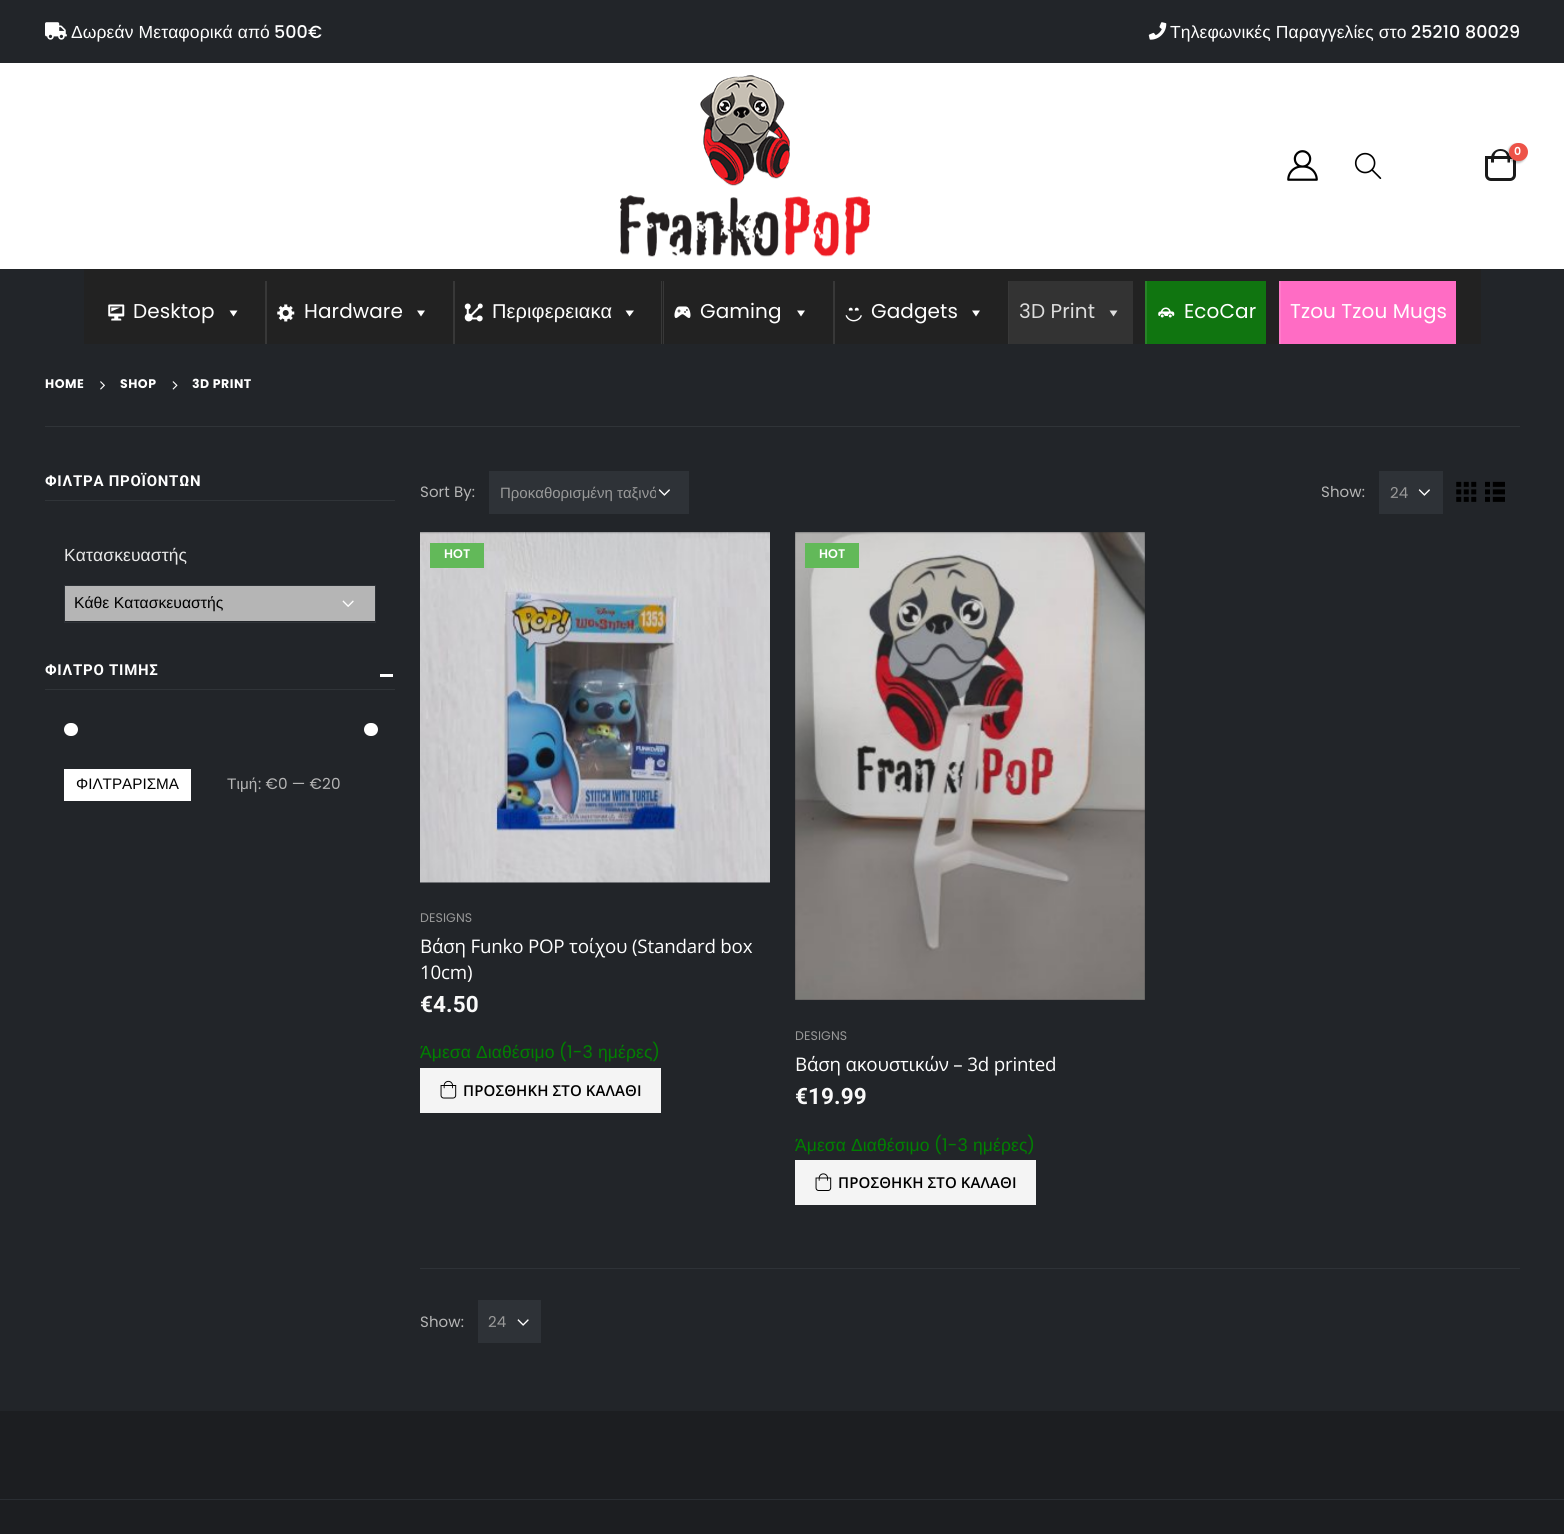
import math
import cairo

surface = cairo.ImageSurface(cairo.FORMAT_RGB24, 1564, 1534)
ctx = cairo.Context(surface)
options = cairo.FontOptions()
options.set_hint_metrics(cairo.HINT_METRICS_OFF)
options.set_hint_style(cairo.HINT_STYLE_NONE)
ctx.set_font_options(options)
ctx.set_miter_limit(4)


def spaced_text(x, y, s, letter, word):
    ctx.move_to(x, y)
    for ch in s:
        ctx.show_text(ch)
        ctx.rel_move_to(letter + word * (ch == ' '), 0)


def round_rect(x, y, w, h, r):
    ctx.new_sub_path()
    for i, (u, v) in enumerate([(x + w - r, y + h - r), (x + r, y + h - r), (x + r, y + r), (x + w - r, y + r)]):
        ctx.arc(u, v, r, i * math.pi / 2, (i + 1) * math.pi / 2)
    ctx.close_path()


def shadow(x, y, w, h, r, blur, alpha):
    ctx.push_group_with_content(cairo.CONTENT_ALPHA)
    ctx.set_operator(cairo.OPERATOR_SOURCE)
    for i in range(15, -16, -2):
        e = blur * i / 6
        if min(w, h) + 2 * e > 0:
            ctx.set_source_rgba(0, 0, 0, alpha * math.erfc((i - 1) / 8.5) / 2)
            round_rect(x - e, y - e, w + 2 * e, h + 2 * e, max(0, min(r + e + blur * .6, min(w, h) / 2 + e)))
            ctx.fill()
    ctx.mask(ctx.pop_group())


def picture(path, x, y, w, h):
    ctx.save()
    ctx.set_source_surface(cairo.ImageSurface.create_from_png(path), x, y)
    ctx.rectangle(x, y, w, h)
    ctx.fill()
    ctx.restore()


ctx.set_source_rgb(0.133, 0.145, 0.161)
ctx.paint()
picture("img1.png", 45, 22, 22, 18)
ctx.select_font_face("Liberation Sans")
ctx.set_font_size(17.5)
ctx.set_source_rgb(1, 1, 1)
spaced_text(71, 38, "Δωρεάν Μεταφορικά από", 0.1, 0)
ctx.select_font_face("Poppins Medium")
spaced_text(274, 38, "500€", 0.1, 0)
picture("img2.png", 1148, 22, 19, 18)
ctx.select_font_face("Liberation Sans")
spaced_text(1170, 38, "Τηλεφωνικές Παραγγελίες στο", 0.1, 0)
ctx.select_font_face("Poppins Medium")
spaced_text(1411, 38, "25210 80029", 0.1, 0)
ctx.rectangle(0, 63, 1564, 206)
ctx.fill()
picture("img3.png", 620, 75, 250, 182)
picture("img4.png", 1287, 150, 31, 31)
picture("img5.png", 1354, 152, 28, 27)
ctx.new_path()
ctx.move_to(1486.5, 157.5)
ctx.line_to(1514.5, 157.5)
ctx.line_to(1514.5, 175)
ctx.curve_to(1514.5, 177.5, 1512.5, 179.5, 1510, 179.5)
ctx.line_to(1491, 179.5)
ctx.curve_to(1488.5, 179.5, 1486.5, 177.5, 1486.5, 175)
ctx.close_path()
ctx.set_source_rgb(0.102, 0.102, 0.102)
ctx.set_line_width(3)
ctx.stroke()
ctx.set_fill_rule(cairo.FILL_RULE_EVEN_ODD)
ctx.new_path()
ctx.move_to(1500.5, 149)
ctx.curve_to(1506, 149, 1510, 153, 1510, 158)
ctx.line_to(1510, 162.5)
ctx.line_to(1491, 162.5)
ctx.line_to(1491, 158)
ctx.curve_to(1491, 153, 1495.5, 149, 1500.5, 149)
ctx.close_path()
ctx.move_to(1500.5, 151)
ctx.curve_to(1507.5, 151, 1507.5, 157.5, 1507.5, 162.5)
ctx.line_to(1494, 162.5)
ctx.curve_to(1494, 157.5, 1493.5, 151, 1500.5, 151)
ctx.close_path()
ctx.fill()
ctx.set_source_rgb(0, 0, 0)
shadow(1508, 144, 18, 19, 9, 1, 0.3)
ctx.set_source_rgb(0.929, 0.325, 0.282)
round_rect(1509, 143, 19, 18, 9)
ctx.fill()
ctx.select_font_face("Poppins SemiBold")
ctx.set_font_size(11)
ctx.set_source_rgb(1, 1, 1)
spaced_text(1514, 155, "0", 0.1, 0)
ctx.set_source_rgb(0.133, 0.133, 0.133)
ctx.rectangle(84, 269, 1397, 75)
ctx.fill()
picture("img6.png", 108, 304, 17, 17)
ctx.select_font_face("Poppins")
ctx.set_font_size(20)
ctx.set_source_rgb(1, 1, 1)
spaced_text(133, 318, "Desktop", 0.1, 0)
ctx.set_fill_rule(cairo.FILL_RULE_WINDING)
ctx.new_path()
ctx.move_to(237.5, 310.5)
ctx.line_to(233.5, 316.5)
ctx.line_to(229.5, 310.5)
ctx.close_path()
ctx.fill()
ctx.set_source_rgb(0.22, 0.22, 0.22)
ctx.rectangle(265, 281, 2, 63)
ctx.fill()
picture("img7.png", 277, 304, 18, 18)
ctx.set_source_rgb(1, 1, 1)
spaced_text(304, 318, "Hardware", 0.1, 0)
ctx.new_path()
ctx.move_to(425, 310.5)
ctx.line_to(421, 316.5)
ctx.line_to(417, 310.5)
ctx.close_path()
ctx.fill()
ctx.set_source_rgb(0.22, 0.22, 0.22)
ctx.rectangle(453, 281, 2, 63)
ctx.fill()
picture("img8.png", 464, 303, 19, 19)
ctx.select_font_face("Liberation Sans")
ctx.set_source_rgb(1, 1, 1)
spaced_text(492, 318, "Περιφερειακα", 0.1, 0)
ctx.new_path()
ctx.move_to(634, 310.5)
ctx.line_to(629.5, 316.5)
ctx.line_to(625.5, 310.5)
ctx.close_path()
ctx.fill()
ctx.set_source_rgb(0.22, 0.22, 0.22)
ctx.rectangle(663, 281, 1, 63)
ctx.fill()
ctx.rectangle(661, 281, 1, 63)
ctx.fill()
picture("img9.png", 674, 306, 17, 12)
ctx.select_font_face("Poppins")
ctx.set_source_rgb(1, 1, 1)
spaced_text(700, 318, "Gaming", 0.1, 0)
ctx.new_path()
ctx.move_to(805, 310.5)
ctx.line_to(801, 316.5)
ctx.line_to(797, 310.5)
ctx.close_path()
ctx.fill()
ctx.set_source_rgb(0.22, 0.22, 0.22)
ctx.rectangle(833, 281, 2, 63)
ctx.fill()
picture("img10.png", 845, 307, 17, 15)
ctx.set_source_rgb(1, 1, 1)
spaced_text(871, 318, "Gadgets", 0.1, 0)
ctx.new_path()
ctx.move_to(980, 310.5)
ctx.line_to(976, 316.5)
ctx.line_to(972, 310.5)
ctx.close_path()
ctx.fill()
ctx.set_source_rgb(0.22, 0.22, 0.22)
ctx.rectangle(1008, 281, 1, 63)
ctx.fill()
ctx.set_source_rgb(0.2, 0.2, 0.2)
ctx.rectangle(1009, 281, 124, 63)
ctx.fill()
ctx.set_source_rgb(0.867, 0.867, 0.867)
spaced_text(1019, 318, "3D Print", 0.1, 0)
ctx.new_path()
ctx.move_to(1117.5, 310.5)
ctx.line_to(1113.5, 316.5)
ctx.line_to(1109.5, 310.5)
ctx.close_path()
ctx.fill()
ctx.set_source_rgb(0.063, 0.459, 0.063)
ctx.rectangle(1147, 281, 119, 63)
ctx.fill()
ctx.set_source_rgb(0.157, 0.514, 0.157)
ctx.rectangle(1145, 281, 2, 63)
ctx.fill()
picture("img11.png", 1158, 307, 17, 11)
ctx.set_source_rgb(1, 1, 1)
spaced_text(1184, 318, "EcoCar", 0.1, 0)
ctx.set_source_rgb(1, 0.424, 0.769)
ctx.rectangle(1281, 281, 175, 63)
ctx.fill()
ctx.set_source_rgb(1, 0.482, 0.792)
ctx.rectangle(1279, 281, 2, 63)
ctx.fill()
ctx.set_source_rgb(1, 1, 1)
spaced_text(1290, 318, "Tzou Tzou Mugs", 0.1, 0)
ctx.select_font_face("Poppins", cairo.FONT_SLANT_NORMAL, cairo.FONT_WEIGHT_BOLD)
ctx.set_font_size(12.5)
spaced_text(45, 388, "HOME", 0.5, 0)
picture("img12.png", 100, 381, 5, 9)
spaced_text(120, 388, "SHOP", 0.5, 0)
picture("img13.png", 172, 381, 6, 9)
spaced_text(192, 388, "3D PRINT", 0.5, 0)
ctx.set_source_rgb(0.188, 0.204, 0.22)
ctx.rectangle(45, 426, 1475, 1)
ctx.fill()
ctx.rectangle(45, 500, 350, 1)
ctx.fill()
ctx.select_font_face("Roboto", cairo.FONT_SLANT_NORMAL, cairo.FONT_WEIGHT_BOLD)
ctx.set_font_size(15)
ctx.set_source_rgb(1, 1, 1)
spaced_text(45, 486, "ΦΙΛΤΡΑ ΠΡΟΪΟΝΤΩΝ", 0.75, 0)
ctx.select_font_face("Liberation Sans")
ctx.set_font_size(17.5)
ctx.set_source_rgb(0.91, 0.91, 0.91)
spaced_text(64, 561, "Κατασκευαστής", 0.1, 0)
ctx.set_source_rgb(0.71, 0.71, 0.71)
ctx.rectangle(65, 586, 310, 35)
ctx.fill()
picture("img14.png", 342, 600, 12, 7)
ctx.rectangle(64.5, 585.5, 311, 37)
ctx.set_source_rgb(0.18, 0.196, 0.216)
ctx.set_line_width(1)
ctx.stroke()
ctx.set_font_size(15.75)
ctx.set_source_rgb(0, 0, 0)
ctx.move_to(74, 608)
ctx.show_text("Κάθε Κατασκευαστής")
ctx.set_source_rgb(0.188, 0.204, 0.22)
ctx.rectangle(45, 689, 350, 1)
ctx.fill()
ctx.select_font_face("Roboto", cairo.FONT_SLANT_NORMAL, cairo.FONT_WEIGHT_BOLD)
ctx.set_font_size(15)
ctx.set_source_rgb(1, 1, 1)
spaced_text(45, 675, "ΦΙΛΤΡΟ ΤΙΜΗΣ", 0.75, 0)
ctx.rectangle(380, 674, 13, 3)
ctx.fill()
round_rect(64, 723, 14, 13, 6.5)
ctx.fill()
round_rect(364, 723, 14, 13, 6.5)
ctx.fill()
ctx.rectangle(64, 769, 127, 32)
ctx.fill()
ctx.select_font_face("Liberation Sans")
ctx.set_font_size(15.25)
ctx.set_source_rgb(0, 0, 0)
ctx.move_to(76, 789)
ctx.show_text("ΦΙΛΤΡΑΡΙΣΜΑ")
ctx.set_source_rgb(0.71, 0.71, 0.71)
spaced_text(227, 789, "Τιμή", 0.1, 0)
ctx.select_font_face("Poppins")
spaced_text(258, 789, ": €0 — €20", 0.1, 0)
ctx.set_font_size(15)
spaced_text(420, 497, "Sort By:", 0.1, 0)
ctx.set_source_rgb(0.18, 0.196, 0.216)
ctx.rectangle(489, 471, 200, 43)
ctx.fill()
picture("img15.png", 658, 489, 12, 7)
ctx.save()
ctx.rectangle(500, 481, 156, 22)
ctx.clip()
ctx.select_font_face("Liberation Sans")
ctx.set_source_rgb(0.6, 0.6, 0.6)
ctx.move_to(500, 498)
ctx.show_text("Προκαθορισμένη ταξινό")
ctx.restore()
ctx.set_source_rgb(0.71, 0.71, 0.71)
spaced_text(1321, 497, "Show:", 0.1, 0)
ctx.set_source_rgb(0.18, 0.196, 0.216)
ctx.rectangle(1379, 471, 64, 43)
ctx.fill()
picture("img15.png", 1418, 489, 12, 7)
ctx.set_source_rgb(0.6, 0.6, 0.6)
ctx.move_to(1390, 498)
ctx.show_text("24")
picture("img16.png", 1456, 481, 21, 21)
picture("img17.png", 1485, 481, 20, 21)
ctx.set_source_rgb(0.18, 0.196, 0.216)
ctx.rectangle(420, 533, 350, 350)
ctx.fill()
picture("img18.png", 420, 532, 350, 351)
ctx.set_source_rgb(0.384, 0.725, 0.349)
ctx.rectangle(430, 543, 54, 25)
ctx.fill()
ctx.select_font_face("Poppins SemiBold")
ctx.set_font_size(12.5)
ctx.set_source_rgb(1, 1, 1)
spaced_text(444, 558, "HOT", 0.1, 0)
ctx.select_font_face("Poppins")
ctx.set_source_rgb(0.6, 0.6, 0.6)
spaced_text(420, 922, "DESIGNS", 0.1, 0)
ctx.select_font_face("Open Sans")
ctx.set_font_size(18.75)
ctx.set_source_rgb(1, 1, 1)
spaced_text(420, 953, "Βάση Funko POP τοίχου (Standard box", -0.2, 0)
spaced_text(420, 979, "10cm)", -0.2, 0)
ctx.select_font_face("Roboto", cairo.FONT_SLANT_NORMAL, cairo.FONT_WEIGHT_BOLD)
ctx.set_font_size(22.5)
ctx.set_source_rgb(0.976, 0.976, 0.976)
spaced_text(420, 1012, "€4.50", 0.1, 0)
ctx.select_font_face("Liberation Sans")
ctx.set_font_size(17.5)
ctx.set_source_rgb(0, 0.502, 0)
spaced_text(420, 1058, "Άμεσα Διαθέσιμο", 0.1, 0)
ctx.select_font_face("Poppins")
spaced_text(559, 1058, "(1-3", 0.1, 0)
ctx.select_font_face("Liberation Sans")
spaced_text(598, 1058, "ημέρες", 0.1, 0)
ctx.select_font_face("Poppins")
spaced_text(652, 1058, ")", 0.1, 0)
ctx.set_source_rgb(0.957, 0.957, 0.957)
ctx.rectangle(420, 1068, 241, 45)
ctx.fill()
picture("img19.png", 440, 1080, 17, 19)
ctx.select_font_face("Open Sans SemiBold")
ctx.set_font_size(15)
ctx.set_source_rgb(0, 0, 0)
spaced_text(463, 1096, "ΠΡΟΣΘΗΚΗ ΣΤΟ ΚΑΛΑΘΙ", 0.1, 0)
ctx.set_source_rgb(0.18, 0.196, 0.216)
ctx.rectangle(795, 533, 350, 467)
ctx.fill()
picture("img20.png", 795, 532, 350, 468)
ctx.set_source_rgb(0.384, 0.725, 0.349)
ctx.rectangle(805, 543, 54, 25)
ctx.fill()
ctx.select_font_face("Poppins SemiBold")
ctx.set_font_size(12.5)
ctx.set_source_rgb(1, 1, 1)
spaced_text(819, 558, "HOT", 0.1, 0)
ctx.select_font_face("Poppins")
ctx.set_source_rgb(0.6, 0.6, 0.6)
spaced_text(795, 1040, "DESIGNS", 0.1, 0)
ctx.select_font_face("Open Sans")
ctx.set_font_size(18.75)
ctx.set_source_rgb(1, 1, 1)
spaced_text(795, 1071, "Βάση ακουστικών – 3d printed", -0.2, 0)
ctx.select_font_face("Roboto", cairo.FONT_SLANT_NORMAL, cairo.FONT_WEIGHT_BOLD)
ctx.set_font_size(22.5)
ctx.set_source_rgb(0.976, 0.976, 0.976)
spaced_text(795, 1104, "€19.99", 0.1, 0)
ctx.select_font_face("Liberation Sans")
ctx.set_font_size(17.5)
ctx.set_source_rgb(0, 0.502, 0)
spaced_text(795, 1151, "Άμεσα Διαθέσιμο", 0.1, 0)
ctx.select_font_face("Poppins")
spaced_text(934, 1151, "(1-3", 0.1, 0)
ctx.select_font_face("Liberation Sans")
spaced_text(973, 1151, "ημέρες", 0.1, 0)
ctx.select_font_face("Poppins")
spaced_text(1027, 1151, ")", 0.1, 0)
ctx.set_source_rgb(0.957, 0.957, 0.957)
ctx.rectangle(795, 1160, 241, 45)
ctx.fill()
picture("img21.png", 815, 1173, 17, 18)
ctx.select_font_face("Open Sans SemiBold")
ctx.set_font_size(15)
ctx.set_source_rgb(0, 0, 0)
spaced_text(838, 1188, "ΠΡΟΣΘΗΚΗ ΣΤΟ ΚΑΛΑΘΙ", 0.1, 0)
ctx.set_source_rgb(0.18, 0.196, 0.216)
ctx.rectangle(420, 1268, 1100, 1)
ctx.fill()
ctx.select_font_face("Poppins")
ctx.set_source_rgb(0.71, 0.71, 0.71)
spaced_text(420, 1327, "Show:", 0.1, 0)
ctx.set_source_rgb(0.18, 0.196, 0.216)
ctx.rectangle(478, 1300, 63, 43)
ctx.fill()
picture("img22.png", 517, 1319, 12, 7)
ctx.set_source_rgb(0.6, 0.6, 0.6)
ctx.move_to(488, 1327)
ctx.show_text("24")
ctx.set_source_rgb(0.11, 0.118, 0.129)
ctx.rectangle(0, 1411, 1564, 88)
ctx.fill()
ctx.set_source_rgb(0.165, 0.18, 0.2)
ctx.rectangle(0, 1499, 1564, 1)
ctx.fill()
ctx.set_source_rgb(0.11, 0.118, 0.129)
ctx.rectangle(0, 1500, 1564, 34)
ctx.fill()
surface.write_to_png("page.png")
